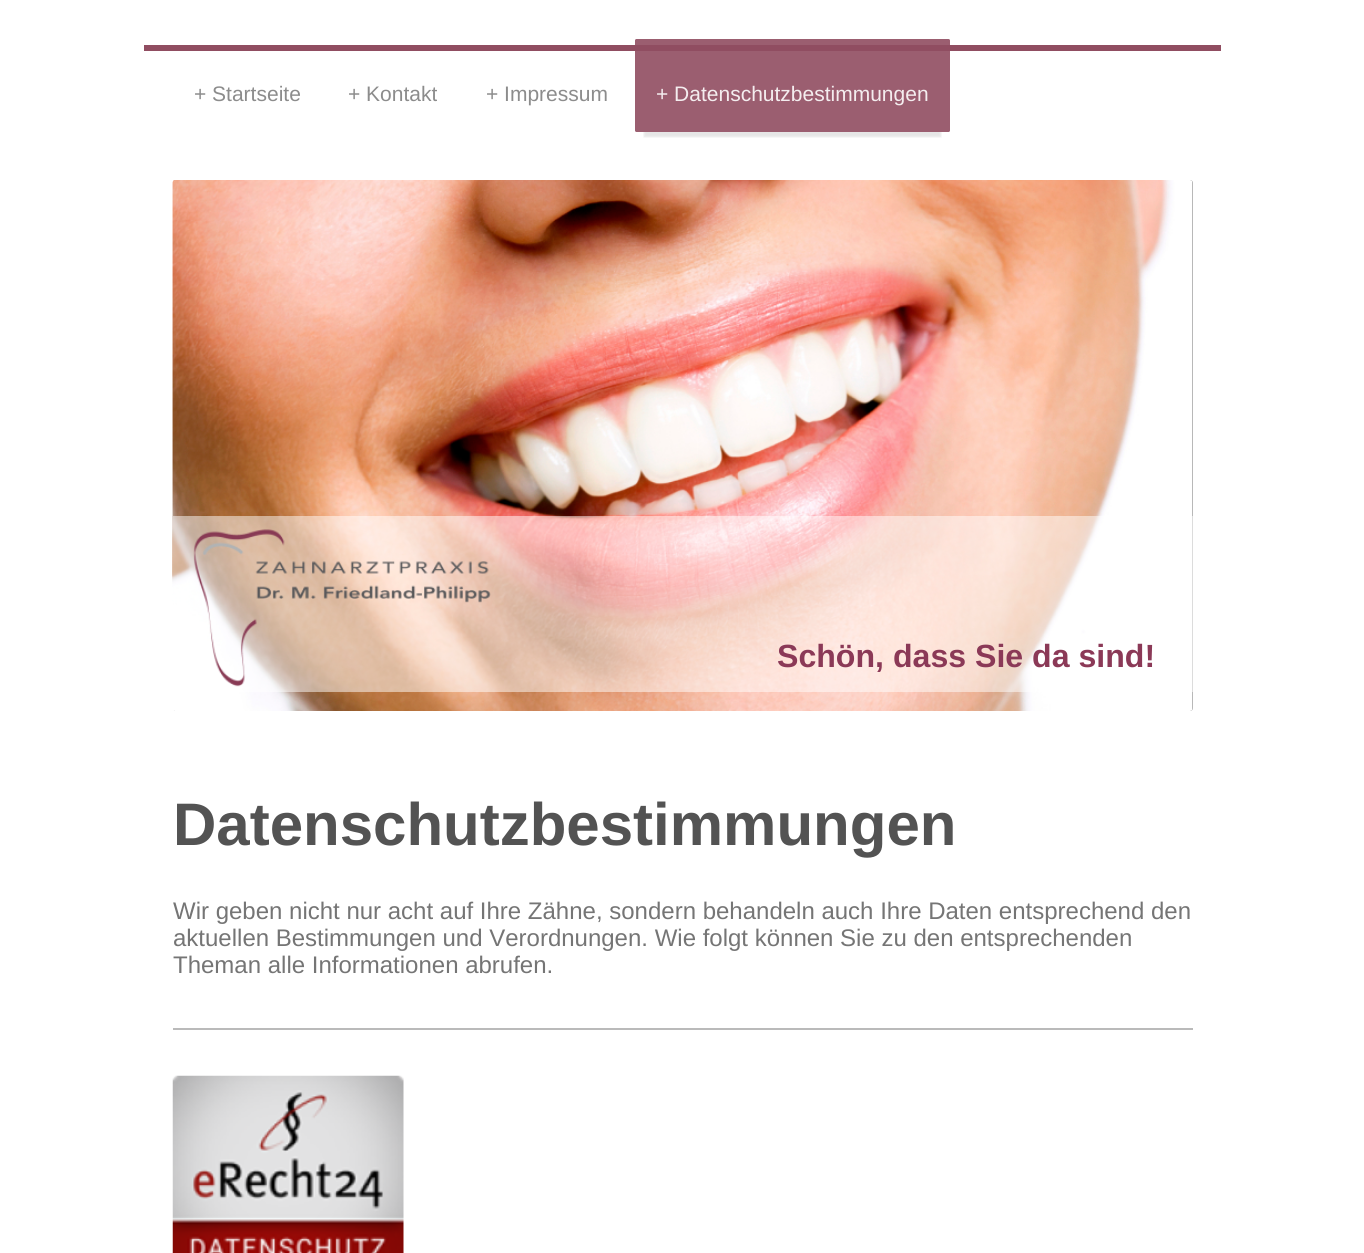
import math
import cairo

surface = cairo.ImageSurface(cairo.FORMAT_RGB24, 1364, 1253)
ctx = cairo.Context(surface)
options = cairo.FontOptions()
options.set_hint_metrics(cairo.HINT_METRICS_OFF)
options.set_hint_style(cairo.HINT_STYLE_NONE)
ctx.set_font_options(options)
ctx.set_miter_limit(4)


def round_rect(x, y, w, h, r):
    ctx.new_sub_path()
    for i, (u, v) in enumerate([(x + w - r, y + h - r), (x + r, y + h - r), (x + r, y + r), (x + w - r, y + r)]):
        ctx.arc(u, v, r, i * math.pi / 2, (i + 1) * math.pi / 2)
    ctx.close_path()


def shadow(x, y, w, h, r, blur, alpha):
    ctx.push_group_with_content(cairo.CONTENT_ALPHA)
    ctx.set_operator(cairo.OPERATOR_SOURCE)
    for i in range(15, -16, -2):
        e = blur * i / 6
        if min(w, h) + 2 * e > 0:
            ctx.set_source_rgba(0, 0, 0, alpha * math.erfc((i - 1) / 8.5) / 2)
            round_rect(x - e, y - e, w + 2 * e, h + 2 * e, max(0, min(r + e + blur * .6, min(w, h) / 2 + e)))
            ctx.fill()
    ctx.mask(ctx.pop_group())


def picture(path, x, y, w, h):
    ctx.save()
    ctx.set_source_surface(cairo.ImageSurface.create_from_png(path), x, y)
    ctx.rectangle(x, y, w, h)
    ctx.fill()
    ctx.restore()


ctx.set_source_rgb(1, 1, 1)
ctx.paint()
ctx.set_source_rgb(0.565, 0.302, 0.38)
ctx.rectangle(144, 45, 1077, 6)
ctx.fill()
ctx.select_font_face("Liberation Sans")
ctx.set_font_size(21)
ctx.set_source_rgb(0.549, 0.549, 0.549)
ctx.move_to(194, 101)
ctx.show_text("+ Startseite")
ctx.move_to(348, 101)
ctx.show_text("+ Kontakt")
ctx.move_to(486, 101)
ctx.show_text("+ Impressum")
ctx.save()
ctx.rectangle(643, 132, 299, 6)
ctx.clip()
ctx.set_source_rgb(0, 0, 0)
shadow(644, 62, 297, 75, 0, 1, 0.1)
ctx.restore()
ctx.set_source_rgba(0.565, 0.302, 0.38, 0.9)
round_rect(635, 39, 315, 93, 1.5)
ctx.fill()
ctx.set_source_rgb(0.957, 0.929, 0.937)
ctx.move_to(656, 101)
ctx.show_text("+ Datenschutzbestimmungen")
picture("img1.png", 172, 180, 1021, 531)
ctx.set_source_rgb(0.627, 0.627, 0.627)
round_rect(173, 180, 1020, 531, 3)
ctx.fill()
picture("img2.png", 172, 180, 1021, 531)
ctx.set_source_rgba(1, 1, 1, 0.5)
ctx.rectangle(173, 516, 1020, 176)
ctx.fill()
picture("img3.png", 193, 529, 298, 158)
ctx.select_font_face("Liberation Sans", cairo.FONT_SLANT_NORMAL, cairo.FONT_WEIGHT_BOLD)
ctx.set_font_size(32.1)
ctx.set_source_rgb(0.545, 0.224, 0.341)
ctx.move_to(777, 667)
ctx.show_text("Schön, dass Sie da sind!")
ctx.set_font_size(60)
ctx.set_source_rgb(0.325, 0.325, 0.325)
ctx.move_to(173, 845)
ctx.show_text("Datenschutzbestimmungen")
ctx.select_font_face("Liberation Sans")
ctx.set_font_size(24)
ctx.set_source_rgb(0.459, 0.459, 0.459)
ctx.move_to(173, 919)
ctx.show_text("Wir geben nicht nur acht auf Ihre Zähne, sondern behandeln auch Ihre Daten entsprechend den")
ctx.move_to(173, 946)
ctx.show_text("aktuellen Bestimmungen und Verordnungen. Wie folgt können Sie zu den entsprechenden")
ctx.move_to(173, 973)
ctx.show_text("Theman alle Informationen abrufen.")
ctx.set_source_rgb(0.729, 0.729, 0.729)
ctx.rectangle(173, 1028, 1020, 2)
ctx.fill()
picture("img4.png", 172, 1075, 232, 178)
surface.write_to_png("page.png")
